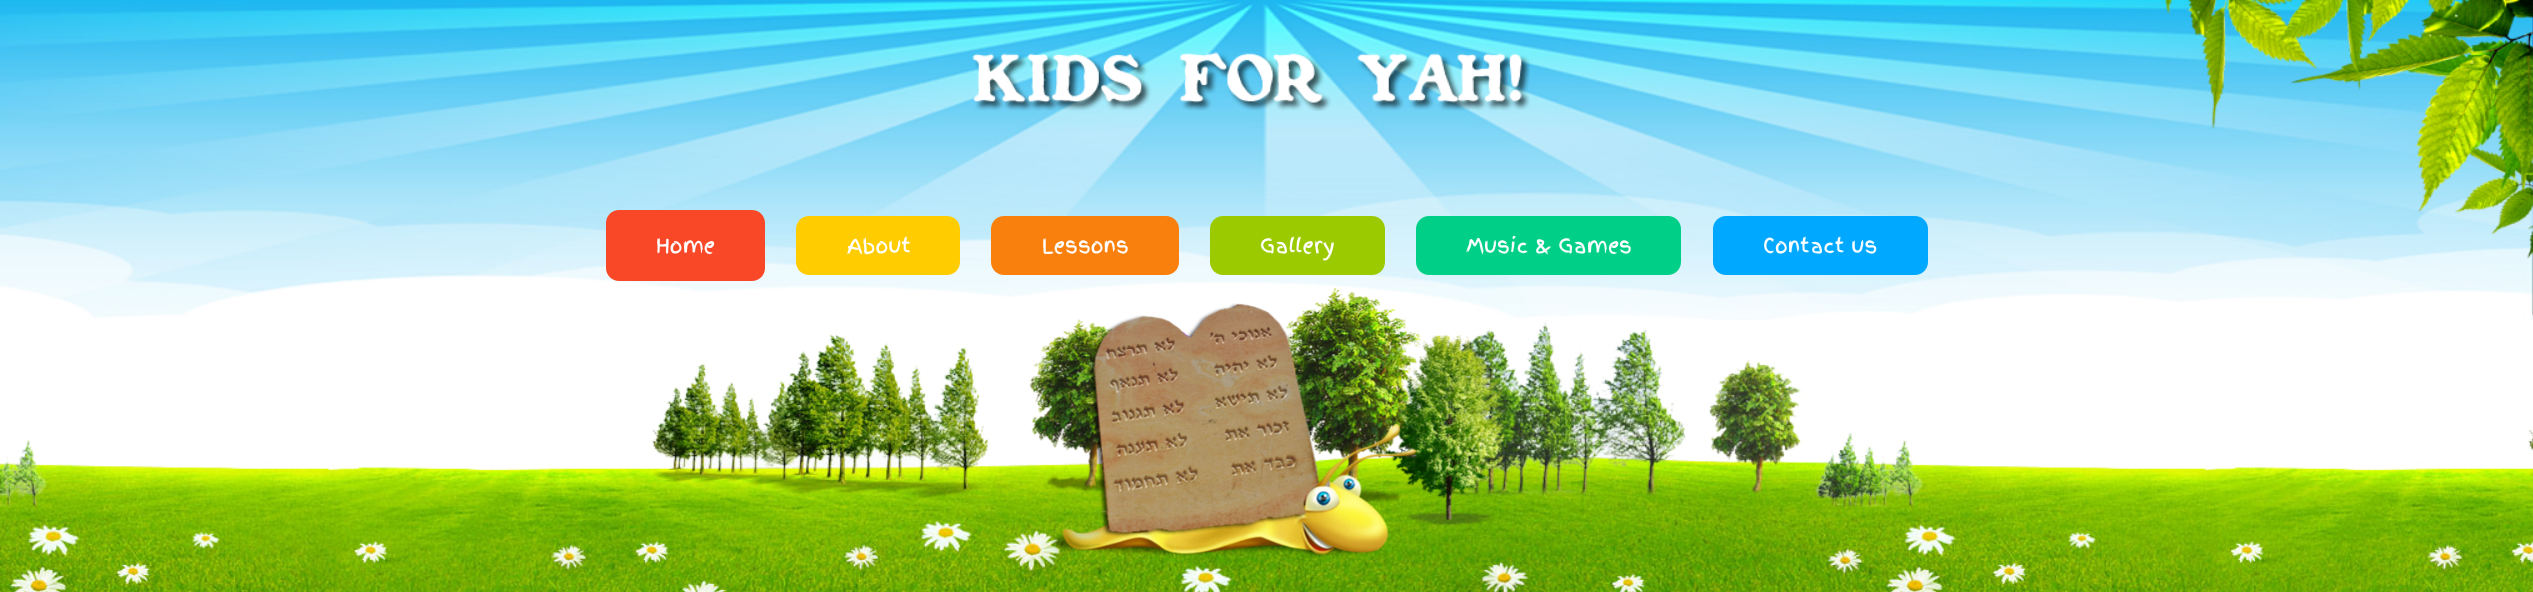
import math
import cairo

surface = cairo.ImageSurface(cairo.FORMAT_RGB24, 2533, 592)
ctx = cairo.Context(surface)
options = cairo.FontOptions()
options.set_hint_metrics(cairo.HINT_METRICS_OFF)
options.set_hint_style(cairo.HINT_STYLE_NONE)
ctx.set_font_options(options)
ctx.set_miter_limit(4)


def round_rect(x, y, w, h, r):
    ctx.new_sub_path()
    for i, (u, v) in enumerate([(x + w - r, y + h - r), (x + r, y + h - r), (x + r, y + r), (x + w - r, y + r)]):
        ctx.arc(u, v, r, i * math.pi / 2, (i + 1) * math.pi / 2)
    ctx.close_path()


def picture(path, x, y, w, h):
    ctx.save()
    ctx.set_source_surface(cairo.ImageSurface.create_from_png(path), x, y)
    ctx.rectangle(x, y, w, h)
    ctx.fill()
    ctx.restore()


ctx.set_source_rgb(1, 1, 1)
ctx.paint()
picture("img1.png", 0, 0, 2533, 320)
picture("img2.png", 2165, 0, 368, 259)
picture("img3.png", 0, 320, 2533, 272)
picture("img4.png", 972, 52, 558, 59)
ctx.set_source_rgb(0.973, 0.282, 0.157)
round_rect(606, 210, 159, 71, 13)
ctx.fill()
ctx.select_font_face("Finger Paint")
ctx.set_font_size(20)
ctx.set_source_rgb(1, 1, 1)
ctx.move_to(656, 253)
ctx.show_text("Home")
ctx.set_source_rgb(1, 0.8, 0)
round_rect(796, 216, 164, 59, 13)
ctx.fill()
ctx.set_source_rgb(1, 1, 1)
ctx.move_to(847, 253)
ctx.show_text("About")
ctx.set_source_rgb(0.976, 0.502, 0.051)
round_rect(991, 216, 188, 59, 13)
ctx.fill()
ctx.set_source_rgb(1, 1, 1)
ctx.move_to(1042, 253)
ctx.show_text("Lessons")
ctx.set_source_rgb(0.612, 0.792, 0)
round_rect(1210, 216, 175, 59, 13)
ctx.fill()
ctx.set_source_rgb(1, 1, 1)
ctx.move_to(1260, 253)
ctx.show_text("Gallery")
ctx.set_source_rgb(0, 0.812, 0.533)
round_rect(1416, 216, 265, 59, 13)
ctx.fill()
ctx.set_source_rgb(1, 1, 1)
ctx.move_to(1466, 253)
ctx.show_text("Music & Games")
ctx.set_source_rgb(0, 0.659, 1)
round_rect(1713, 216, 215, 59, 13)
ctx.fill()
ctx.set_source_rgb(1, 1, 1)
ctx.move_to(1763, 253)
ctx.show_text("Contact us")
picture("img5.png", 1029, 288, 476, 238)
picture("img6.png", 1052, 303, 365, 255)
surface.write_to_png("page.png")
